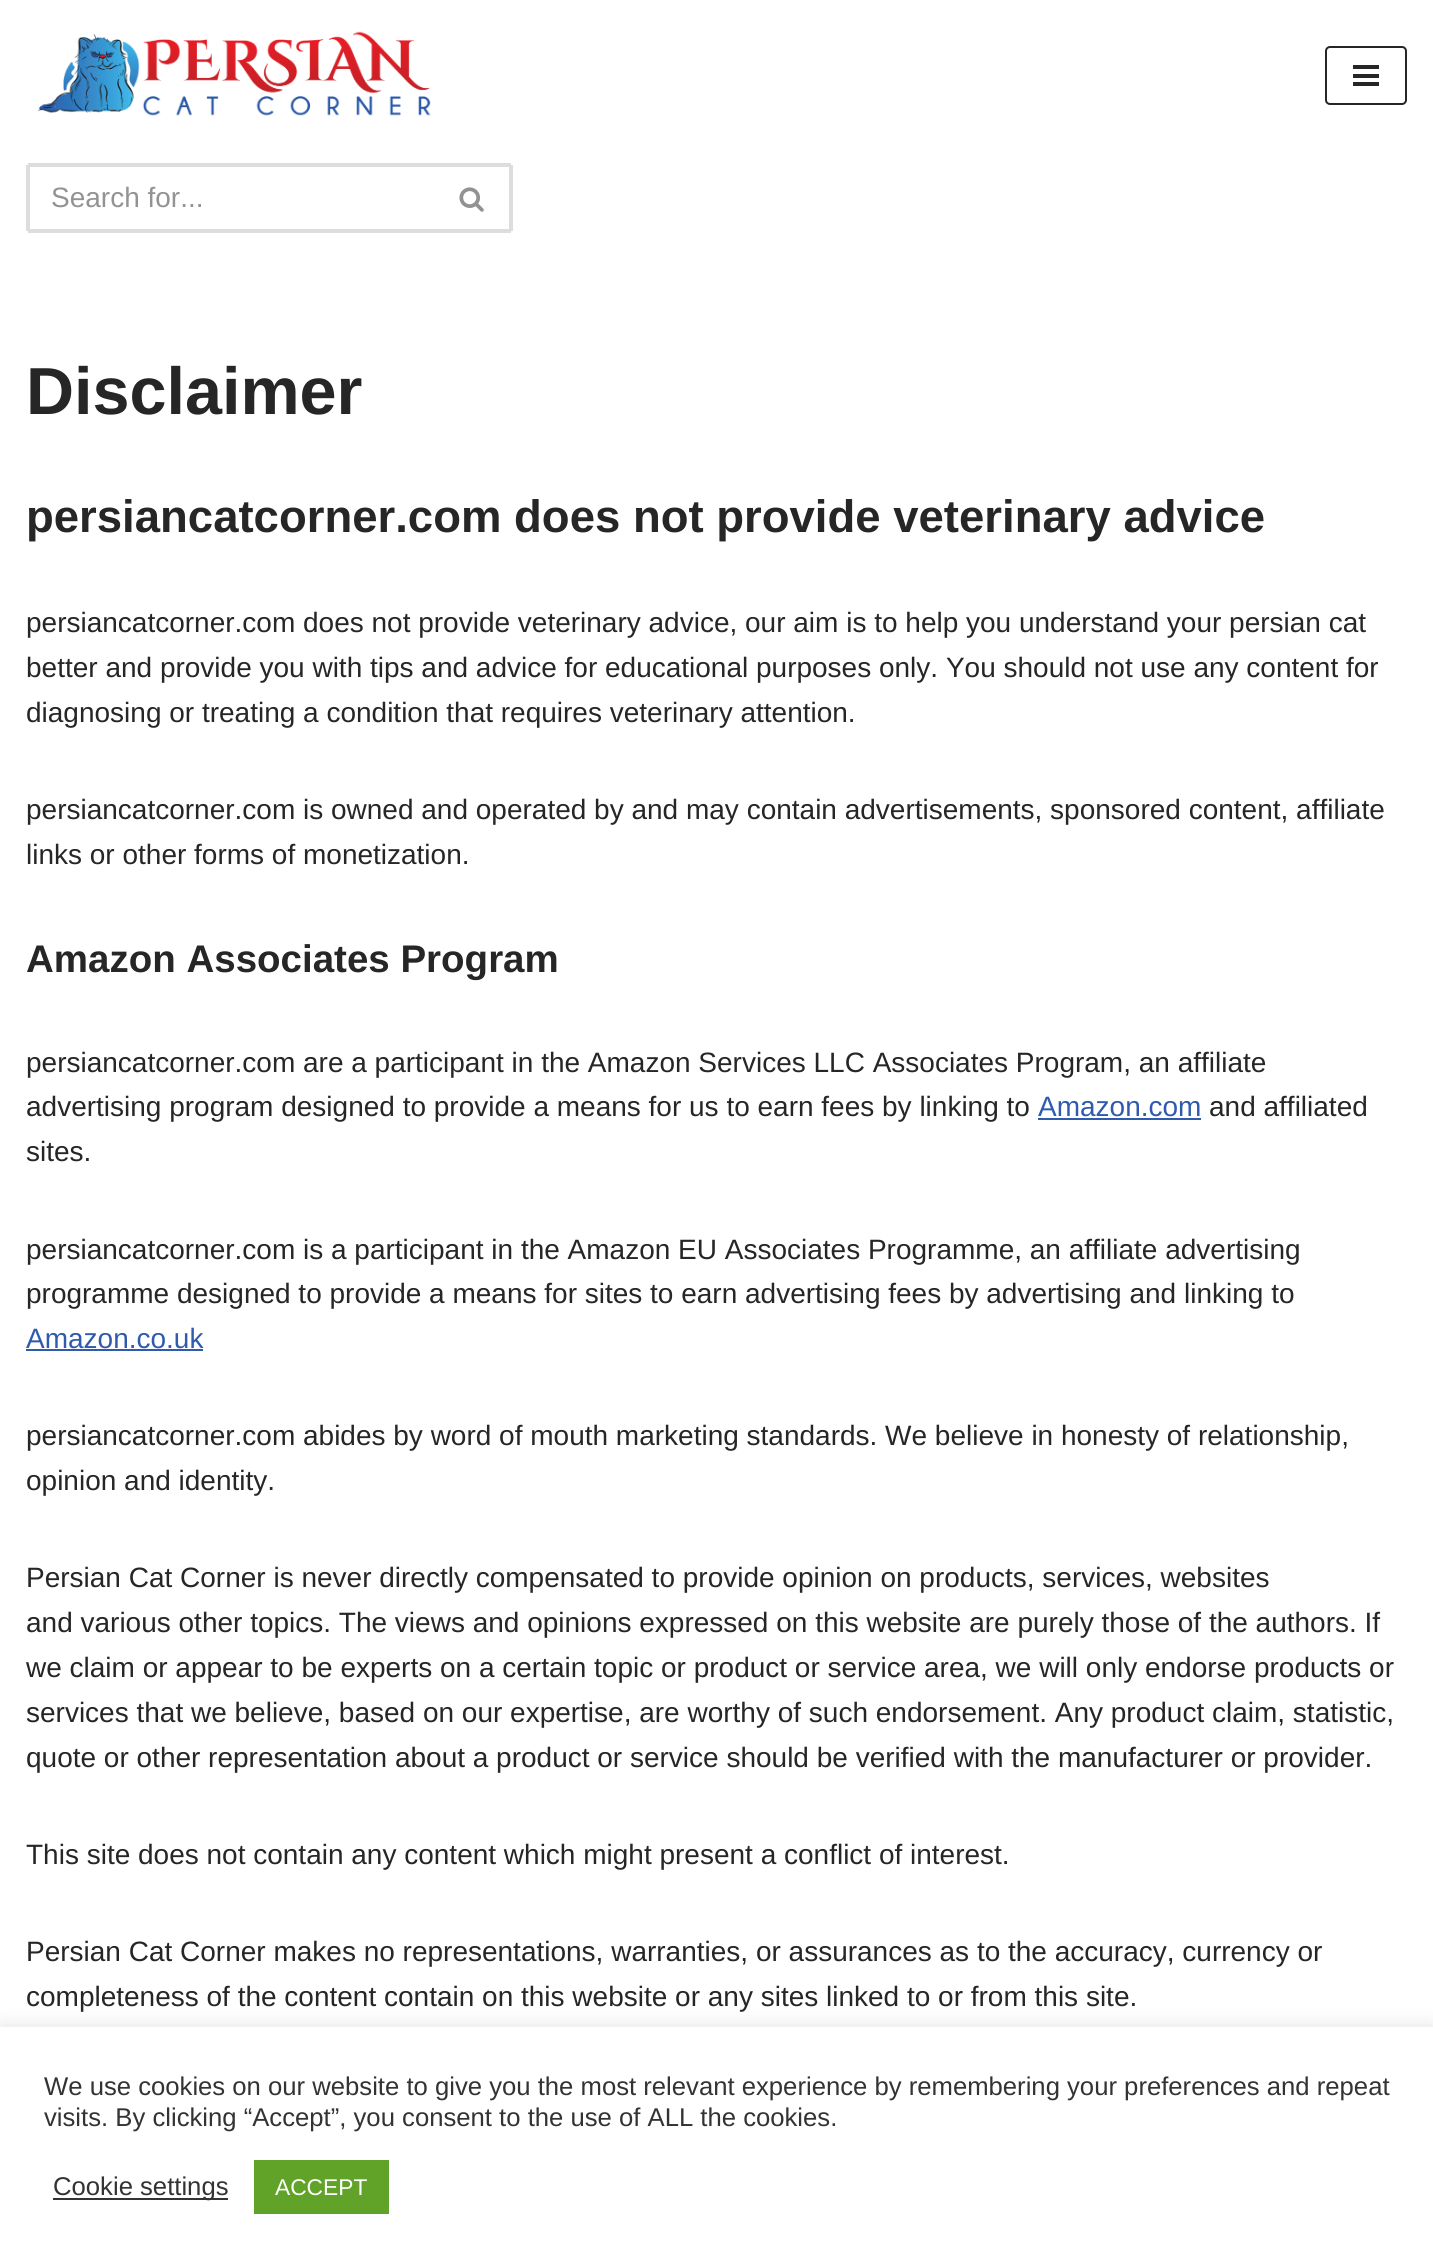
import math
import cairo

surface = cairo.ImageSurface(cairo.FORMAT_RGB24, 1433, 2265)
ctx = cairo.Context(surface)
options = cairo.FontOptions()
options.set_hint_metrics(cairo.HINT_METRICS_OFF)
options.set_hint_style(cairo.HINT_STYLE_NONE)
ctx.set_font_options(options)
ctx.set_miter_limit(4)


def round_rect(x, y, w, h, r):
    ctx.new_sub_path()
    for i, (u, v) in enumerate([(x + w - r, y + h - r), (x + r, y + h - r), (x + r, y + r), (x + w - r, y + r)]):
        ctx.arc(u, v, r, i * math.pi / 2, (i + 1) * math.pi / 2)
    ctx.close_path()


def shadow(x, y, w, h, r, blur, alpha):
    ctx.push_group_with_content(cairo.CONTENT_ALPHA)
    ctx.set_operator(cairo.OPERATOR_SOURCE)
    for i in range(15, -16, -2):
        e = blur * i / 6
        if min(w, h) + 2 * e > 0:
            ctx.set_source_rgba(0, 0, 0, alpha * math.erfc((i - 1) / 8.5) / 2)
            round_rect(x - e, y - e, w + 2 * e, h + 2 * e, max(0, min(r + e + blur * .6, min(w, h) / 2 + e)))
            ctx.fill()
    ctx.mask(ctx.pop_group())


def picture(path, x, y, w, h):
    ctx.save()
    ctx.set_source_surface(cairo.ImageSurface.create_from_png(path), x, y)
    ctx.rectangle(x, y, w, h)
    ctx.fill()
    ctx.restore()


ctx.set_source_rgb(1, 1, 1)
ctx.paint()
picture("img1.png", 38, 31, 393, 85)
round_rect(1326, 47, 80, 57, 4)
ctx.set_source_rgb(0.153, 0.149, 0.149)
ctx.stroke()
ctx.rectangle(1353, 65, 26, 4)
ctx.fill()
ctx.rectangle(1353, 74, 26, 4)
ctx.fill()
ctx.rectangle(1353, 82, 26, 4)
ctx.fill()
ctx.set_source_rgb(0.867, 0.867, 0.867)
ctx.rectangle(28, 163, 483, 4)
ctx.fill()
ctx.rectangle(28, 229, 406, 4)
ctx.fill()
ctx.rectangle(26, 165, 4, 66)
ctx.fill()
ctx.select_font_face("Liberation Sans")
ctx.set_font_size(28)
ctx.set_source_rgb(0.576, 0.576, 0.576)
ctx.move_to(51, 207)
ctx.show_text("Search for...")
ctx.set_source_rgb(0.867, 0.867, 0.867)
ctx.rectangle(509, 165, 4, 66)
ctx.fill()
ctx.rectangle(434, 229, 77, 4)
ctx.fill()
picture("img2.png", 459, 187, 25, 25)
ctx.select_font_face("Liberation Sans", cairo.FONT_SLANT_NORMAL, cairo.FONT_WEIGHT_BOLD)
ctx.set_font_size(66.5)
ctx.set_source_rgb(0.153, 0.149, 0.149)
ctx.move_to(26, 414)
ctx.show_text("Disclaimer")
ctx.set_font_size(45.5)
ctx.move_to(26, 532)
ctx.show_text("persiancatcorner.com does not provide veterinary advice")
ctx.select_font_face("Liberation Sans")
ctx.set_font_size(28)
ctx.move_to(26, 632)
ctx.show_text("persiancatcorner.com does not provide veterinary advice, our aim is to help you understand your persian cat")
ctx.move_to(26, 677)
ctx.show_text("better and provide you with tips and advice for educational purposes only. You should not use any content for")
ctx.move_to(26, 722)
ctx.show_text("diagnosing or treating a condition that requires veterinary attention.")
ctx.move_to(26, 819)
ctx.show_text("persiancatcorner.com is owned and operated by and may contain advertisements, sponsored content, affiliate")
ctx.move_to(26, 864)
ctx.show_text("links or other forms of monetization.")
ctx.select_font_face("Liberation Sans", cairo.FONT_SLANT_NORMAL, cairo.FONT_WEIGHT_BOLD)
ctx.set_font_size(38.5)
ctx.move_to(26, 972)
ctx.show_text("Amazon Associates Program")
ctx.select_font_face("Liberation Sans")
ctx.set_font_size(28)
ctx.move_to(26, 1072)
ctx.show_text("persiancatcorner.com are a participant in the Amazon Services LLC Associates Program, an affiliate")
ctx.move_to(26, 1116)
ctx.show_text("advertising program designed to provide a means for us to earn fees by linking to")
ctx.set_source_rgb(0.184, 0.353, 0.682)
ctx.move_to(1038, 1116)
ctx.show_text("Amazon.com")
ctx.rectangle(1038, 1118, 163, 2)
ctx.fill()
ctx.set_source_rgb(0.153, 0.149, 0.149)
ctx.move_to(1209, 1116)
ctx.show_text("and affiliated")
ctx.move_to(26, 1161)
ctx.show_text("sites.")
ctx.move_to(26, 1259)
ctx.show_text("persiancatcorner.com is a participant in the Amazon EU Associates Programme, an affiliate advertising")
ctx.move_to(26, 1303)
ctx.show_text("programme designed to provide a means for sites to earn advertising fees by advertising and linking to")
ctx.set_source_rgb(0.184, 0.353, 0.682)
ctx.move_to(26, 1348)
ctx.show_text("Amazon.co.uk")
ctx.rectangle(26, 1349, 177, 2)
ctx.fill()
ctx.set_source_rgb(0.153, 0.149, 0.149)
ctx.move_to(26, 1445)
ctx.show_text("persiancatcorner.com abides by word of mouth marketing standards. We believe in honesty of relationship,")
ctx.move_to(26, 1490)
ctx.show_text("opinion and identity.")
ctx.move_to(26, 1587)
ctx.show_text("Persian Cat Corner is never directly compensated to provide opinion on products, services, websites")
ctx.move_to(26, 1632)
ctx.show_text("and various other topics. The views and opinions expressed on this website are purely those of the authors. If")
ctx.move_to(26, 1677)
ctx.show_text("we claim or appear to be experts on a certain topic or product or service area, we will only endorse products or")
ctx.move_to(26, 1722)
ctx.show_text("services that we believe, based on our expertise, are worthy of such endorsement. Any product claim, statistic,")
ctx.move_to(26, 1767)
ctx.show_text("quote or other representation about a product or service should be verified with the manufacturer or provider.")
ctx.move_to(26, 1864)
ctx.show_text("This site does not contain any content which might present a conflict of interest.")
ctx.move_to(26, 1961)
ctx.show_text("Persian Cat Corner makes no representations, warranties, or assurances as to the accuracy, currency or")
ctx.move_to(26, 2006)
ctx.show_text("completeness of the content contain on this website or any sites linked to or from this site.")
ctx.set_source_rgb(0.675, 0.671, 0.671)
shadow(0, 2025, 1433, 240, 0, 9, 0.3)
ctx.set_source_rgb(1, 1, 1)
ctx.rectangle(0, 2027, 1433, 238)
ctx.fill()
ctx.set_font_size(25.67)
ctx.set_source_rgb(0.2, 0.2, 0.2)
ctx.move_to(44, 2095)
ctx.show_text("We use cookies on our website to give you the most relevant experience by remembering your preferences and repeat")
ctx.move_to(44, 2126)
ctx.show_text("visits. By clicking “Accept”, you consent to the use of ALL the cookies.")
ctx.rectangle(53, 2198, 175, 2)
ctx.fill()
ctx.move_to(53, 2195)
ctx.show_text("Cookie settings")
ctx.set_source_rgb(0.38, 0.635, 0.161)
ctx.rectangle(254, 2160, 135, 54)
ctx.fill()
ctx.set_font_size(22.75)
ctx.set_source_rgb(1, 1, 1)
ctx.move_to(275, 2195)
ctx.show_text("ACCEPT")
surface.write_to_png("page.png")
